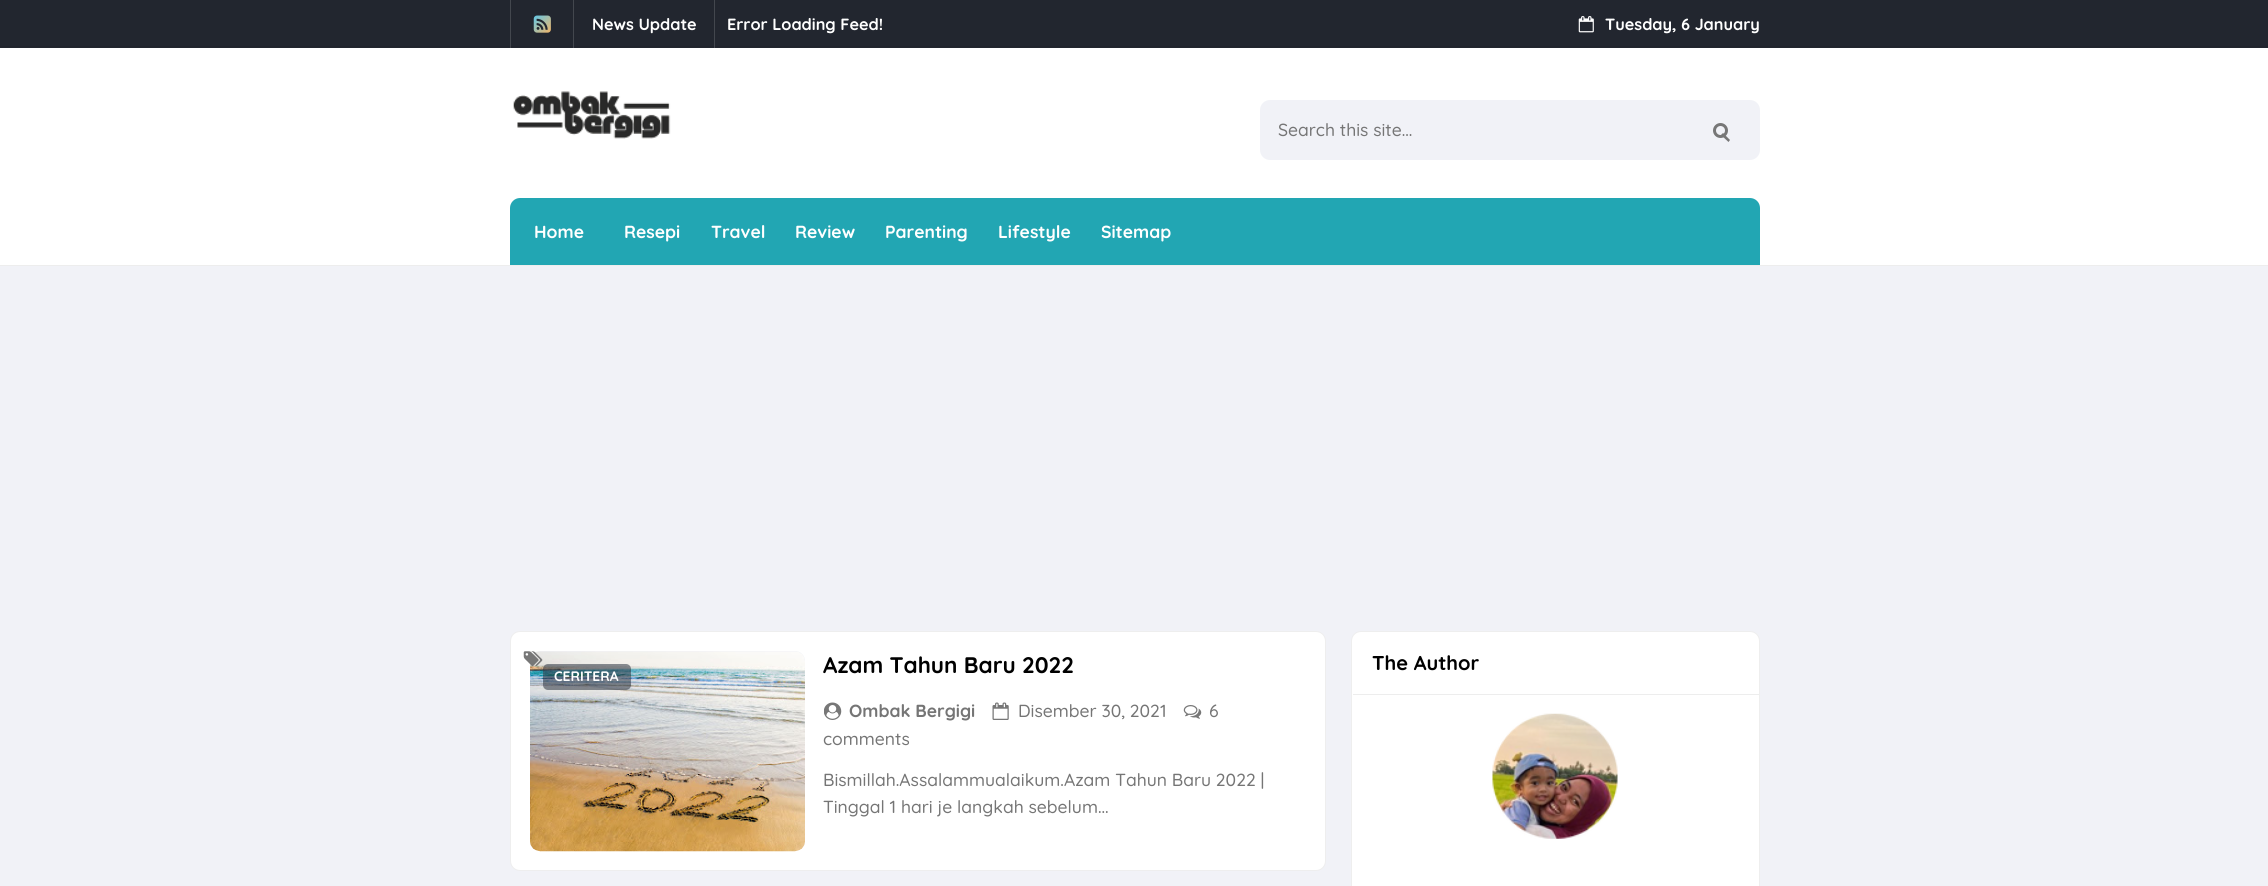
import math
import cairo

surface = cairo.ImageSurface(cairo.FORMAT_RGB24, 2268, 886)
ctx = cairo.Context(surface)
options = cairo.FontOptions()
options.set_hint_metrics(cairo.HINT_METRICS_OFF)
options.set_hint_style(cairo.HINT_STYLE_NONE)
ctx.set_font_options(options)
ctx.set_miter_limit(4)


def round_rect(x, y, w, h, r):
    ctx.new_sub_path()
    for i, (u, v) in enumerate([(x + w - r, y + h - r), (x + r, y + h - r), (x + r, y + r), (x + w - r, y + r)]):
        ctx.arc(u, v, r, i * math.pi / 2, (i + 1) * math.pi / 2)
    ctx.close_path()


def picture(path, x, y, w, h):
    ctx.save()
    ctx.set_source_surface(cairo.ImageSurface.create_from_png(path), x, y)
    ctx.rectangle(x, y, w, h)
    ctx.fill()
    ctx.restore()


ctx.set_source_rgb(0.945, 0.949, 0.965)
ctx.paint()
ctx.set_source_rgb(0.133, 0.149, 0.184)
ctx.rectangle(0, 0, 2268, 48)
ctx.fill()
ctx.set_source_rgb(0.263, 0.278, 0.306)
ctx.rectangle(714, 0, 1, 48)
ctx.fill()
ctx.rectangle(510, 0, 1, 48)
ctx.fill()
ctx.rectangle(573, 0, 1, 48)
ctx.fill()
ctx.set_source_rgb(0.125, 0.137, 0.173)
ctx.rectangle(0, 46, 2268, 1)
ctx.fill()
ctx.set_source_rgb(0.255, 0.267, 0.298)
ctx.rectangle(714, 46, 1, 1)
ctx.fill()
ctx.rectangle(510, 46, 1, 1)
ctx.fill()
ctx.rectangle(573, 46, 1, 1)
ctx.fill()
picture("img1.png", 533, 15, 18, 18)
ctx.select_font_face("Quicksand", cairo.FONT_SLANT_NORMAL, cairo.FONT_WEIGHT_BOLD)
ctx.set_font_size(16.25)
ctx.set_source_rgb(1, 1, 1)
ctx.move_to(592, 30)
ctx.show_text("News Update")
ctx.move_to(727, 30)
ctx.show_text("Error Loading Feed!")
picture("img2.png", 1578, 16, 16, 17)
ctx.move_to(1605, 30)
ctx.show_text("Tuesday, 6 January")
ctx.rectangle(0, 48, 2268, 217)
ctx.fill()
ctx.set_source_rgb(0.929, 0.929, 0.929)
ctx.rectangle(0, 265, 2268, 1)
ctx.fill()
picture("img3.png", 513, 91, 158, 48)
ctx.set_source_rgb(0.945, 0.949, 0.965)
round_rect(1260, 100, 500, 60, 10)
ctx.fill()
ctx.select_font_face("Quicksand Medium")
ctx.set_font_size(17.5)
ctx.set_source_rgb(0.459, 0.459, 0.459)
ctx.move_to(1278, 136)
ctx.show_text("Search this site...")
ctx.new_path()
ctx.arc(1720.5, 130.5, 6, 0, 2 * math.pi)
ctx.set_source_rgb(0.467, 0.467, 0.467)
ctx.set_line_width(3)
ctx.stroke()
ctx.new_path()
ctx.move_to(1723, 133)
ctx.line_to(1730, 140)
ctx.line_to(1728.5, 142)
ctx.line_to(1721, 135)
ctx.close_path()
ctx.fill()
ctx.set_source_rgb(0.133, 0.651, 0.702)
ctx.new_path()
ctx.move_to(520, 198)
ctx.line_to(1750, 198)
ctx.curve_to(1755.5, 198, 1760, 202.5, 1760, 208)
ctx.line_to(1760, 265)
ctx.line_to(510, 265)
ctx.line_to(510, 208)
ctx.curve_to(510, 202.5, 514.5, 198, 520, 198)
ctx.close_path()
ctx.fill()
ctx.select_font_face("Quicksand", cairo.FONT_SLANT_NORMAL, cairo.FONT_WEIGHT_BOLD)
ctx.set_source_rgb(1, 1, 1)
ctx.move_to(534, 238)
ctx.show_text("Home")
ctx.move_to(624, 238)
ctx.show_text("Resepi")
ctx.move_to(711, 238)
ctx.show_text("Travel")
ctx.move_to(795, 238)
ctx.show_text("Review")
ctx.move_to(885, 238)
ctx.show_text("Parenting")
ctx.move_to(998, 238)
ctx.show_text("Lifestyle")
ctx.move_to(1101, 238)
ctx.show_text("Sitemap")
round_rect(510, 631, 816, 240, 10)
ctx.fill()
round_rect(510.5, 631.5, 815, 239, 9.5)
ctx.set_source_rgba(0, 0, 0, 0.07)
ctx.set_line_width(1)
ctx.stroke()
ctx.set_font_size(22.5)
ctx.set_source_rgb(0, 0, 0)
ctx.move_to(823, 673)
ctx.show_text("Azam Tahun Baru 2022")
ctx.set_source_rgb(0.945, 0.949, 0.965)
round_rect(530, 651, 275, 200, 10)
ctx.fill()
picture("img4.png", 530, 651, 275, 201)
ctx.set_source_rgba(0.184, 0.208, 0.259, 0.55)
round_rect(543, 664, 88, 26, 5)
ctx.fill()
ctx.set_font_size(13.75)
ctx.set_source_rgb(1, 1, 1)
ctx.move_to(554, 681)
ctx.show_text("CERITERA")
picture("img5.png", 523, 651, 20, 15)
picture("img6.png", 1183, 705, 19, 14)
ctx.select_font_face("Quicksand Medium")
ctx.set_font_size(17.5)
ctx.set_source_rgb(0.459, 0.459, 0.459)
ctx.move_to(1209, 717)
ctx.show_text("6")
ctx.move_to(823, 745)
ctx.show_text("comments")
picture("img7.png", 824, 702, 18, 18)
ctx.select_font_face("Quicksand", cairo.FONT_SLANT_NORMAL, cairo.FONT_WEIGHT_BOLD)
ctx.move_to(849, 717)
ctx.show_text("Ombak Bergigi")
picture("img8.png", 992, 702, 17, 18)
ctx.select_font_face("Quicksand Medium")
ctx.move_to(1018, 717)
ctx.show_text("Disember 30, 2021")
ctx.move_to(823, 786)
ctx.show_text("Bismillah.Assalammualaikum.Azam Tahun Baru 2022 |")
ctx.move_to(823, 813)
ctx.show_text("Tinggal 1 hari je langkah sebelum...")
ctx.set_source_rgb(1, 1, 1)
round_rect(1351, 631, 409, 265, 10)
ctx.fill()
round_rect(1351.5, 631.5, 408, 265, 9.5)
ctx.set_source_rgba(0, 0, 0, 0.07)
ctx.stroke()
ctx.set_source_rgb(0.929, 0.929, 0.929)
ctx.rectangle(1353, 694, 406, 1)
ctx.fill()
ctx.select_font_face("Quicksand", cairo.FONT_SLANT_NORMAL, cairo.FONT_WEIGHT_BOLD)
ctx.set_font_size(20)
ctx.set_source_rgb(0, 0, 0)
ctx.move_to(1372, 670)
ctx.show_text("The Author")
picture("img9.png", 1492, 713, 126, 126)
surface.write_to_png("page.png")
